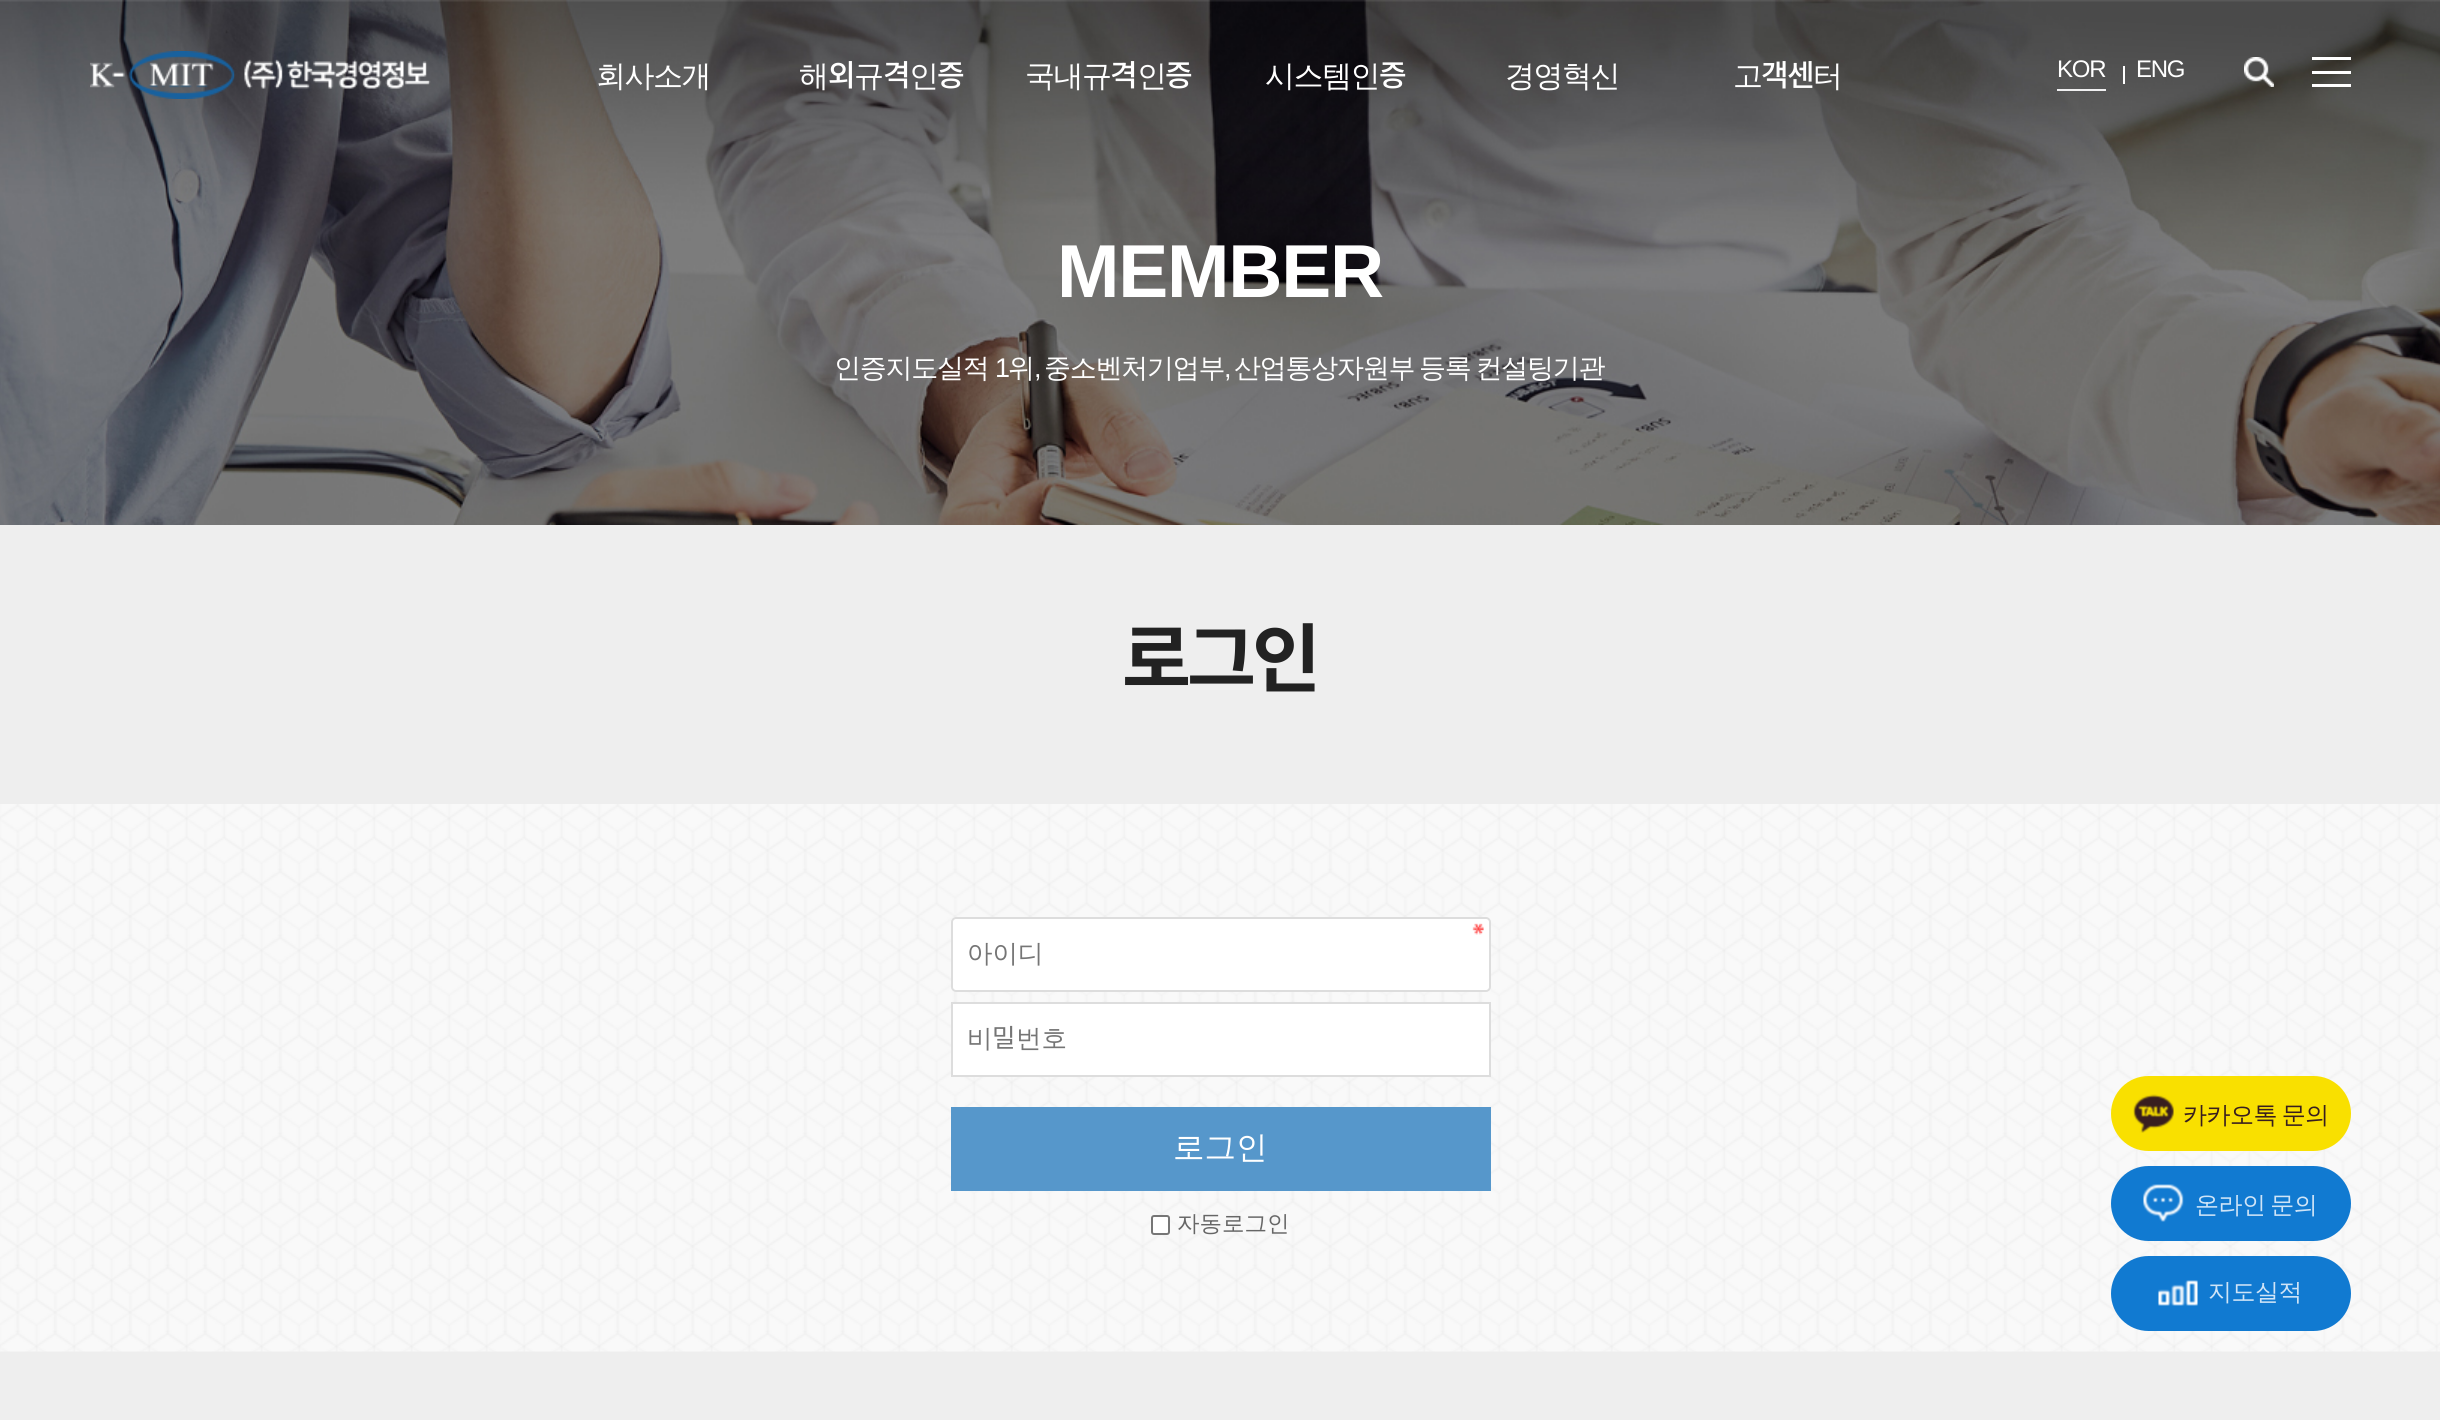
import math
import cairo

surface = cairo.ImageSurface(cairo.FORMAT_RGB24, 2440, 1420)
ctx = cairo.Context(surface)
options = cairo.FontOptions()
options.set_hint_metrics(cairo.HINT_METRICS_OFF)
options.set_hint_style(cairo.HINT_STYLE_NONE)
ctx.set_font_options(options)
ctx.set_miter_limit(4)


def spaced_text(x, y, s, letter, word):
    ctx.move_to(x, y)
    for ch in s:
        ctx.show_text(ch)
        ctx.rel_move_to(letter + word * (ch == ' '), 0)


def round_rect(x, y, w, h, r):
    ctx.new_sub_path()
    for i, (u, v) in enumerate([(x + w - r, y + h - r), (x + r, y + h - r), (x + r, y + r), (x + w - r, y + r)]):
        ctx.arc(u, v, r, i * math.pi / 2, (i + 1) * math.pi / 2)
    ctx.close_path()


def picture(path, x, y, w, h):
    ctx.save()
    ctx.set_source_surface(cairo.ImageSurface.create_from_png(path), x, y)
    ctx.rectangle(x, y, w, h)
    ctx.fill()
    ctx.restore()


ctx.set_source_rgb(0.933, 0.933, 0.933)
ctx.paint()
picture("img3.png", 0, 0, 2440, 525)
picture("img1.png", 90, 51, 341, 48)
ctx.select_font_face("WenQuanYi Zen Hei Medium")
ctx.set_font_size(30)
ctx.set_source_rgb(1, 1, 1)
spaced_text(596, 86, "회사소개", -1.5, 0)
spaced_text(799, 86, "해", -1.5, 0)
ctx.select_font_face("Noto Sans KR Medium")
spaced_text(828, 86, "외", -1.5, 0)
ctx.select_font_face("WenQuanYi Zen Hei Medium")
spaced_text(854, 86, "규", -1.5, 0)
ctx.select_font_face("Noto Sans KR Medium")
spaced_text(883, 86, "격", -1.5, 0)
ctx.select_font_face("WenQuanYi Zen Hei Medium")
spaced_text(909, 86, "인", -1.5, 0)
ctx.select_font_face("Noto Sans KR Medium")
spaced_text(937, 86, "증", -1.5, 0)
ctx.select_font_face("WenQuanYi Zen Hei Medium")
spaced_text(1025, 86, "국내규", -1.5, 0)
ctx.select_font_face("Noto Sans KR Medium")
spaced_text(1110, 86, "격", -1.5, 0)
ctx.select_font_face("WenQuanYi Zen Hei Medium")
spaced_text(1137, 86, "인", -1.5, 0)
ctx.select_font_face("Noto Sans KR Medium")
spaced_text(1165, 86, "증", -1.5, 0)
ctx.select_font_face("WenQuanYi Zen Hei Medium")
spaced_text(1265, 86, "시스템인", -1.5, 0)
ctx.select_font_face("Noto Sans KR Medium")
spaced_text(1379, 86, "증", -1.5, 0)
ctx.select_font_face("WenQuanYi Zen Hei Medium")
spaced_text(1505, 86, "경영혁신", -1.5, 0)
spaced_text(1733, 86, "고", -1.5, 0)
ctx.select_font_face("Noto Sans KR Medium")
spaced_text(1761, 86, "객센", -1.5, 0)
ctx.select_font_face("WenQuanYi Zen Hei Medium")
spaced_text(1813, 86, "터", -1.5, 0)
ctx.set_source_rgb(0.937, 0.937, 0.941)
ctx.rectangle(2057, 89, 49, 2)
ctx.fill()
ctx.select_font_face("Liberation Sans")
ctx.set_font_size(24)
ctx.set_source_rgb(1, 1, 1)
spaced_text(2057, 77, "KOR", -1.25, 0)
ctx.rectangle(2123, 66, 2, 18)
ctx.fill()
spaced_text(2136, 77, "ENG", -1.25, 0)
picture("img2.png", 2244, 57, 30, 30)
ctx.rectangle(2312, 57, 39, 3)
ctx.fill()
ctx.rectangle(2312, 71, 39, 3)
ctx.fill()
ctx.rectangle(2312, 84, 39, 3)
ctx.fill()
ctx.select_font_face("Liberation Sans", cairo.FONT_SLANT_NORMAL, cairo.FONT_WEIGHT_BOLD)
ctx.set_font_size(75)
spaced_text(1057, 297, "MEMBER", -1.25, 0)
ctx.select_font_face("WenQuanYi Zen Hei Medium")
ctx.set_font_size(27)
spaced_text(834, 377, "인증지도실적", -1.25, 0)
ctx.select_font_face("Liberation Sans")
spaced_text(995, 377, "1", -1.25, 0)
ctx.select_font_face("WenQuanYi Zen Hei Medium")
spaced_text(1008, 377, "위", -1.25, 0)
ctx.select_font_face("Liberation Sans")
spaced_text(1034, 377, ",", -1.25, 0)
ctx.select_font_face("WenQuanYi Zen Hei Medium")
spaced_text(1044, 377, "중소벤처기업부", -1.25, 0)
ctx.select_font_face("Liberation Sans")
spaced_text(1224, 377, ",", -1.25, 0)
ctx.select_font_face("WenQuanYi Zen Hei Medium")
spaced_text(1234, 377, "산업통상자원부 등록 컨설팅기관", -1.25, -2)
ctx.select_font_face("Noto Sans KR", cairo.FONT_SLANT_NORMAL, cairo.FONT_WEIGHT_BOLD)
ctx.set_font_size(75)
ctx.set_source_rgb(0.133, 0.133, 0.133)
spaced_text(1122, 686, "로그인", -4, 0)
picture("img4.png", 0, 804, 2440, 548)
ctx.set_source_rgb(1, 1, 1)
round_rect(951, 917, 540, 75, 5)
ctx.fill()
picture("img5.png", 1472, 923, 12, 12)
round_rect(952, 918, 538, 73, 4)
ctx.set_source_rgb(0.867, 0.867, 0.867)
ctx.stroke()
ctx.select_font_face("WenQuanYi Zen Hei Medium")
ctx.set_font_size(25.5)
ctx.set_source_rgb(0.459, 0.459, 0.459)
ctx.move_to(967, 962)
ctx.show_text("아이디")
ctx.set_source_rgb(1, 1, 1)
ctx.rectangle(952, 1003, 538, 73)
ctx.fill_preserve()
ctx.set_source_rgb(0.867, 0.867, 0.867)
ctx.stroke()
ctx.set_source_rgb(0.459, 0.459, 0.459)
ctx.move_to(967, 1047)
ctx.show_text("비")
ctx.select_font_face("Noto Sans KR")
ctx.move_to(992, 1047)
ctx.show_text("밀")
ctx.select_font_face("WenQuanYi Zen Hei Medium")
ctx.move_to(1016, 1047)
ctx.show_text("번호")
ctx.set_source_rgb(0.337, 0.592, 0.796)
ctx.rectangle(951, 1107, 540, 84)
ctx.fill()
ctx.set_font_size(31.5)
ctx.set_source_rgb(1, 1, 1)
ctx.move_to(1173, 1158)
ctx.show_text("로그인")
round_rect(1152, 1216, 17, 18, 2)
ctx.fill_preserve()
ctx.set_source_rgb(0.463, 0.463, 0.463)
ctx.stroke()
ctx.set_font_size(22.5)
ctx.set_source_rgb(0.4, 0.4, 0.4)
ctx.move_to(1177, 1231)
ctx.show_text("자동로그인")
ctx.set_source_rgb(0.976, 0.878, 0)
round_rect(2111, 1076, 240, 75, 37.5)
ctx.fill()
picture("img6.png", 2133, 1094, 41, 39)
ctx.set_font_size(24)
ctx.set_source_rgb(0.22, 0.118, 0.122)
spaced_text(2183, 1123, "카카오톡 문의", -0.5, -2)
ctx.set_source_rgb(0.067, 0.478, 0.82)
round_rect(2111, 1166, 240, 75, 37.5)
ctx.fill()
picture("img7.png", 2143, 1184, 41, 38)
ctx.set_source_rgb(0.812, 0.894, 0.965)
spaced_text(2195, 1213, "온라인 문의", -0.5, -2)
ctx.set_source_rgb(0.067, 0.478, 0.82)
round_rect(2111, 1256, 240, 75, 37.5)
ctx.fill()
picture("img8.png", 2158, 1280, 40, 26)
ctx.set_source_rgb(0.812, 0.894, 0.965)
spaced_text(2208, 1300, "지도실적", -0.5, 0)
surface.write_to_png("page.png")
